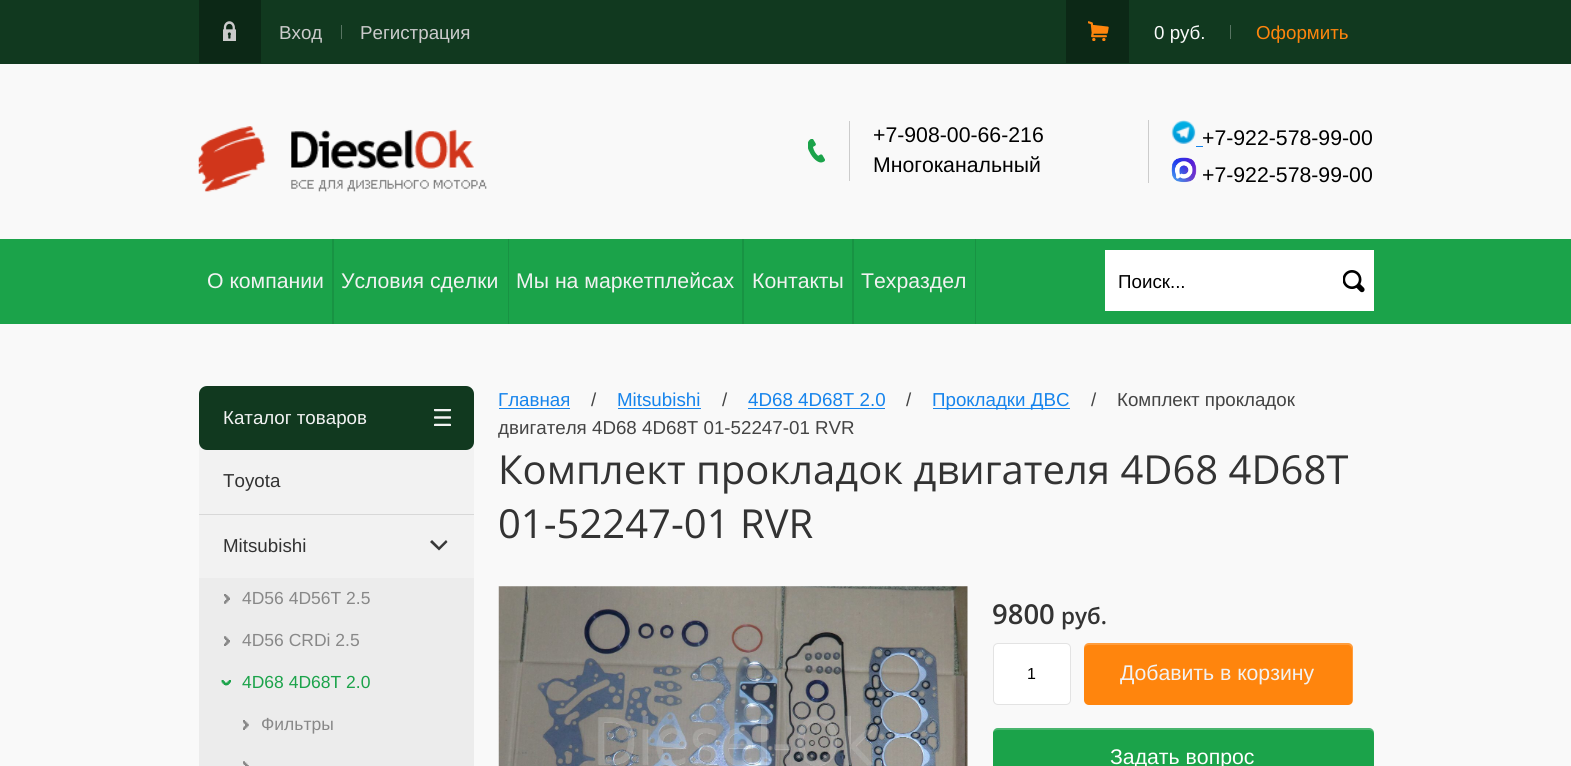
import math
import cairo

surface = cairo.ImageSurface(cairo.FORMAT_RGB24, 1571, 766)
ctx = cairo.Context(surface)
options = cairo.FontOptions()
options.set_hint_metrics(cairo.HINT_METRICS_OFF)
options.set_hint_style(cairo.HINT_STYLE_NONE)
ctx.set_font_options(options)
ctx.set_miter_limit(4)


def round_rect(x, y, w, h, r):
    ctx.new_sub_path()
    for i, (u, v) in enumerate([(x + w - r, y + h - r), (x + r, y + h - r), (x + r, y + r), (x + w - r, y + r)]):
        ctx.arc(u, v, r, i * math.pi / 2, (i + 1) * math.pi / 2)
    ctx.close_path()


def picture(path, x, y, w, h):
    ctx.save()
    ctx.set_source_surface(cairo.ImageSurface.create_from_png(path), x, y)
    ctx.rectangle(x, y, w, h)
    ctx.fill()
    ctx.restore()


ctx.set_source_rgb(0.973, 0.973, 0.973)
ctx.paint()
ctx.set_source_rgb(0.067, 0.224, 0.122)
ctx.rectangle(0, 0, 1571, 64)
ctx.fill()
ctx.set_source_rgb(0.047, 0.157, 0.086)
ctx.rectangle(199, 0, 62, 63)
ctx.fill()
picture("img1.png", 223, 21, 13, 20)
ctx.select_font_face("Liberation Sans")
ctx.set_font_size(18.75)
ctx.set_source_rgb(0.796, 0.796, 0.796)
ctx.move_to(279, 39)
ctx.show_text("Вход")
ctx.set_source_rgb(0.345, 0.455, 0.384)
ctx.rectangle(341, 25, 1, 14)
ctx.fill()
ctx.set_source_rgb(0.796, 0.796, 0.796)
ctx.move_to(360, 39)
ctx.show_text("Регистрация")
ctx.set_source_rgb(0.047, 0.157, 0.086)
ctx.rectangle(1066, 0, 63, 63)
ctx.fill()
picture("img2.png", 1088, 21, 21, 20)
ctx.set_source_rgb(0.973, 0.973, 0.973)
ctx.move_to(1154, 39)
ctx.show_text("0 руб.")
ctx.set_source_rgb(0.345, 0.455, 0.384)
ctx.rectangle(1230, 25, 1, 14)
ctx.fill()
ctx.set_source_rgb(1, 0.522, 0.051)
ctx.move_to(1256, 39)
ctx.show_text("Оформить")
picture("img3.png", 198, 126, 289, 66)
ctx.set_source_rgb(0.8, 0.8, 0.8)
ctx.rectangle(849, 121, 1, 60)
ctx.fill()
picture("img4.png", 808, 139, 17, 24)
ctx.set_font_size(21.25)
ctx.set_source_rgb(0, 0, 0)
ctx.move_to(873, 142)
ctx.show_text("+7-908-00-66-216")
ctx.move_to(873, 172)
ctx.show_text("Многоканальный")
ctx.set_source_rgb(0.8, 0.8, 0.8)
ctx.rectangle(1148, 120, 1, 63)
ctx.fill()
picture("img5.png", 1171, 120, 25, 24)
ctx.set_source_rgb(0, 0, 0)
ctx.move_to(1202, 145)
ctx.show_text("+7-922-578-99-00")
ctx.set_source_rgb(0.086, 0.518, 0.922)
ctx.rectangle(1196, 146, 7, 1)
ctx.fill()
picture("img6.png", 1171, 157, 26, 26)
ctx.set_source_rgb(0, 0, 0)
ctx.move_to(1202, 182)
ctx.show_text("+7-922-578-99-00")
ctx.set_source_rgb(0.106, 0.639, 0.29)
ctx.rectangle(0, 239, 1571, 85)
ctx.fill()
ctx.set_source_rgb(0.094, 0.576, 0.263)
ctx.new_path()
ctx.move_to(200, 324)
ctx.line_to(334, 324)
ctx.line_to(334, 239)
ctx.line_to(332, 239)
ctx.line_to(332, 324)
ctx.close_path()
ctx.fill()
ctx.set_source_rgb(0.949, 0.949, 0.949)
ctx.move_to(207, 288)
ctx.show_text("О компании")
ctx.set_source_rgb(0.094, 0.576, 0.263)
ctx.new_path()
ctx.move_to(334, 324)
ctx.line_to(509, 324)
ctx.line_to(509, 239)
ctx.line_to(508, 239)
ctx.line_to(508, 324)
ctx.close_path()
ctx.fill()
ctx.set_source_rgb(0.949, 0.949, 0.949)
ctx.move_to(341, 288)
ctx.show_text("Условия сделки")
ctx.set_source_rgb(0.094, 0.576, 0.263)
ctx.new_path()
ctx.move_to(509, 324)
ctx.line_to(744, 324)
ctx.line_to(744, 239)
ctx.line_to(742, 239)
ctx.line_to(742, 324)
ctx.close_path()
ctx.fill()
ctx.set_source_rgb(0.949, 0.949, 0.949)
ctx.move_to(516, 288)
ctx.show_text("Мы на маркетплейсах")
ctx.set_source_rgb(0.094, 0.576, 0.263)
ctx.new_path()
ctx.move_to(744, 324)
ctx.line_to(854, 324)
ctx.line_to(854, 239)
ctx.line_to(852, 239)
ctx.line_to(852, 324)
ctx.close_path()
ctx.fill()
ctx.set_source_rgb(0.949, 0.949, 0.949)
ctx.move_to(752, 288)
ctx.show_text("Контакты")
ctx.set_source_rgb(0.094, 0.576, 0.263)
ctx.new_path()
ctx.move_to(854, 324)
ctx.line_to(976, 324)
ctx.line_to(976, 239)
ctx.line_to(975, 239)
ctx.line_to(975, 324)
ctx.close_path()
ctx.fill()
ctx.set_source_rgb(0.949, 0.949, 0.949)
ctx.move_to(861, 288)
ctx.show_text("Техраздел")
ctx.set_source_rgb(1, 1, 1)
ctx.rectangle(1105, 250, 269, 61)
ctx.fill()
ctx.set_font_size(18.75)
ctx.set_source_rgb(0, 0, 0)
ctx.move_to(1118, 288)
ctx.show_text("Поиск...")
picture("img7.png", 1343, 270, 22, 23)
ctx.set_source_rgb(0.949, 0.949, 0.949)
round_rect(199, 440, 275, 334, 8)
ctx.fill()
ctx.set_source_rgb(0.067, 0.224, 0.122)
round_rect(199, 386, 275, 64, 8)
ctx.fill()
picture("img8.png", 434, 409, 17, 17)
ctx.set_source_rgb(0.949, 0.949, 0.949)
ctx.move_to(223, 424)
ctx.show_text("Каталог товаров")
ctx.set_source_rgb(0.847, 0.847, 0.847)
ctx.rectangle(199, 514, 275, 1)
ctx.fill()
ctx.set_source_rgb(0.2, 0.2, 0.2)
ctx.move_to(223, 487)
ctx.show_text("Toyota")
ctx.set_source_rgb(0.22, 0.22, 0.22)
ctx.new_path()
ctx.move_to(447.5, 542)
ctx.line_to(439, 550.5)
ctx.line_to(430, 542)
ctx.line_to(432, 540)
ctx.line_to(439, 547)
ctx.line_to(446, 540)
ctx.close_path()
ctx.fill()
ctx.set_source_rgb(0.2, 0.2, 0.2)
ctx.move_to(223, 552)
ctx.show_text("Mitsubishi")
ctx.set_source_rgb(0.922, 0.922, 0.922)
ctx.rectangle(199, 578, 275, 188)
ctx.fill()
picture("img9.png", 224, 594, 6, 10)
ctx.set_font_size(17.5)
ctx.set_source_rgb(0.533, 0.533, 0.533)
ctx.move_to(242, 604)
ctx.show_text("4D56 4D56T 2.5")
picture("img10.png", 224, 636, 6, 10)
ctx.move_to(242, 646)
ctx.show_text("4D56 CRDi 2.5")
picture("img11.png", 221, 680, 10, 6)
ctx.set_source_rgb(0.106, 0.639, 0.29)
ctx.move_to(242, 688)
ctx.show_text("4D68 4D68T 2.0")
picture("img12.png", 243, 720, 6, 10)
ctx.set_source_rgb(0.533, 0.533, 0.533)
ctx.move_to(261, 730)
ctx.show_text("Фильтры")
picture("img13.png", 243, 761, 6, 5)
ctx.set_font_size(18.75)
ctx.set_source_rgb(0.086, 0.518, 0.922)
ctx.move_to(498, 406)
ctx.show_text("Главная")
ctx.rectangle(499, 408, 71, 1)
ctx.fill()
ctx.set_source_rgb(0.267, 0.267, 0.267)
ctx.move_to(591, 406)
ctx.show_text("/")
ctx.set_source_rgb(0.086, 0.518, 0.922)
ctx.move_to(617, 406)
ctx.show_text("Mitsubishi")
ctx.rectangle(618, 408, 83, 1)
ctx.fill()
ctx.set_source_rgb(0.267, 0.267, 0.267)
ctx.move_to(722, 406)
ctx.show_text("/")
ctx.set_source_rgb(0.086, 0.518, 0.922)
ctx.move_to(748, 406)
ctx.show_text("4D68 4D68T 2.0")
ctx.rectangle(748, 408, 137, 1)
ctx.fill()
ctx.set_source_rgb(0.267, 0.267, 0.267)
ctx.move_to(906, 406)
ctx.show_text("/")
ctx.set_source_rgb(0.086, 0.518, 0.922)
ctx.rectangle(933, 408, 137, 1)
ctx.fill()
ctx.move_to(932, 406)
ctx.show_text("Прокладки ДВС")
ctx.set_source_rgb(0.267, 0.267, 0.267)
ctx.move_to(1091, 406)
ctx.show_text("/")
ctx.move_to(1117, 406)
ctx.show_text("Комплект прокладок")
ctx.move_to(498, 434)
ctx.show_text("двигателя 4D68 4D68T 01-52247-01 RVR")
ctx.select_font_face("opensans")
ctx.set_font_size(40)
ctx.set_source_rgb(0.2, 0.2, 0.2)
ctx.move_to(498, 484)
ctx.show_text("Комплект прокладок двигателя 4D68 4D68T")
ctx.move_to(498, 538)
ctx.show_text("01-52247-01 RVR")
picture("img14.png", 498, 586, 470, 180)
ctx.select_font_face("Open Sans SemiBold")
ctx.set_font_size(27.5)
ctx.move_to(992, 624)
ctx.show_text("9800")
ctx.set_font_size(22.5)
ctx.move_to(1061, 624)
ctx.show_text("руб.")
ctx.set_source_rgb(1, 1, 1)
round_rect(993.5, 643.5, 77, 61, 4.5)
ctx.fill_preserve()
ctx.set_source_rgb(0.89, 0.89, 0.89)
ctx.set_line_width(1)
ctx.stroke()
ctx.select_font_face("Liberation Sans")
ctx.set_font_size(16)
ctx.set_source_rgb(0, 0, 0)
ctx.move_to(1027, 679)
ctx.show_text("1")
ctx.set_source_rgb(1, 0.522, 0.051)
round_rect(1084, 643, 269, 62, 5)
ctx.fill()
ctx.set_source_rgba(1, 1, 1, 0.2)
ctx.new_path()
ctx.move_to(1089, 645)
ctx.line_to(1348, 645)
ctx.curve_to(1350, 645, 1352, 647, 1352, 650)
ctx.line_to(1352, 703)
ctx.curve_to(1353, 702, 1353, 701, 1353, 700)
ctx.line_to(1353, 648)
ctx.curve_to(1353, 645, 1351, 643, 1348, 643)
ctx.line_to(1089, 643)
ctx.curve_to(1086, 643, 1084, 645, 1084, 648)
ctx.line_to(1084, 650)
ctx.curve_to(1084, 647, 1086, 645, 1089, 645)
ctx.close_path()
ctx.fill()
ctx.set_font_size(21.25)
ctx.set_source_rgb(0.949, 0.949, 0.949)
ctx.move_to(1120, 680)
ctx.show_text("Добавить в корзину")
ctx.set_source_rgb(0.106, 0.639, 0.29)
round_rect(993, 728, 381, 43, 5)
ctx.fill()
ctx.set_source_rgba(1, 1, 1, 0.2)
ctx.new_path()
ctx.move_to(998, 730)
ctx.line_to(1369, 730)
ctx.curve_to(1372, 730, 1374, 732, 1374, 735)
ctx.line_to(1374, 733)
ctx.curve_to(1374, 730, 1372, 728, 1369, 728)
ctx.line_to(998, 728)
ctx.curve_to(996, 728, 993, 730, 993, 732)
ctx.curve_to(994, 731, 996, 730, 998, 730)
ctx.close_path()
ctx.fill()
ctx.set_source_rgb(1, 1, 1)
ctx.move_to(1110, 764)
ctx.show_text("Задать вопрос")
surface.write_to_png("page.png")
